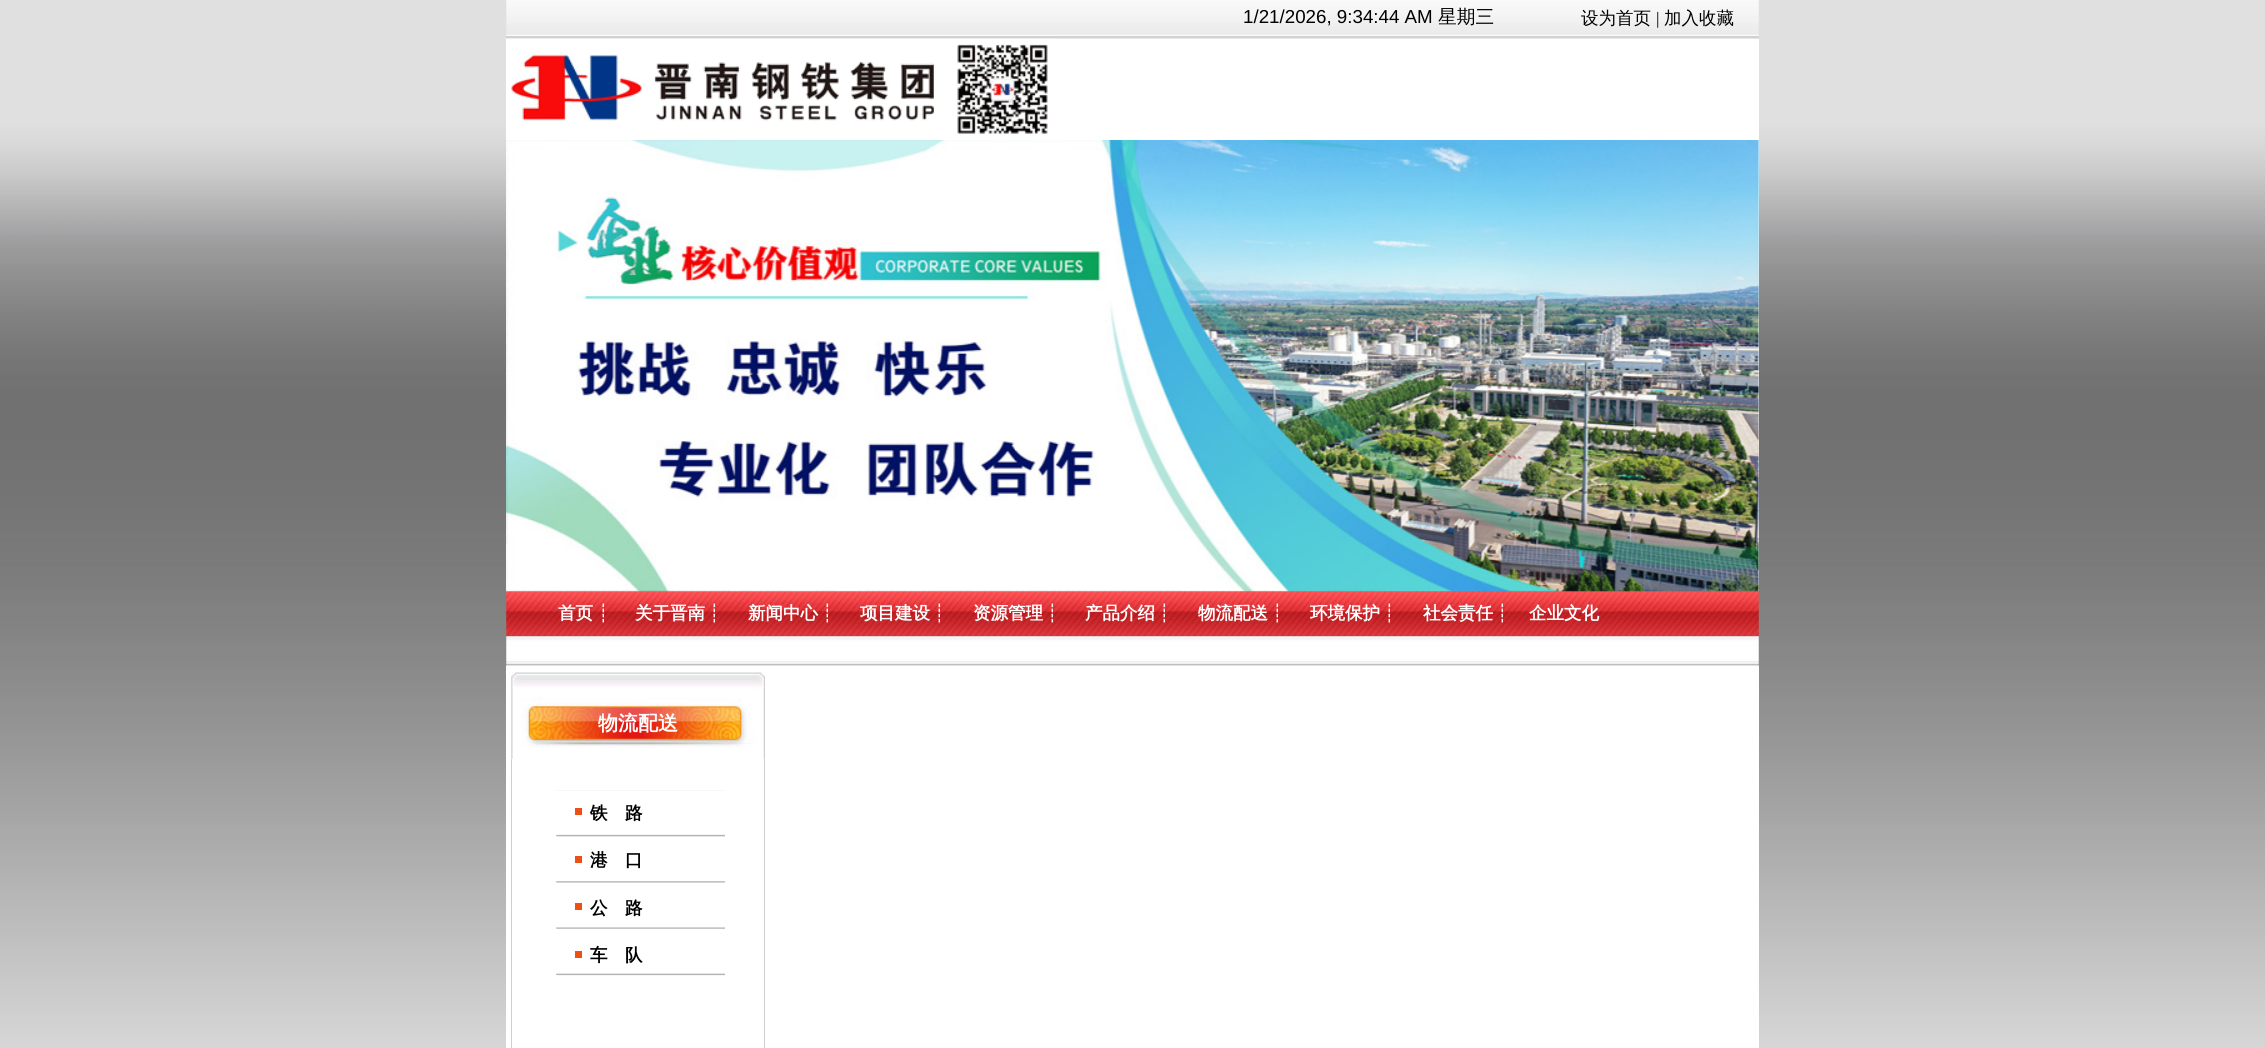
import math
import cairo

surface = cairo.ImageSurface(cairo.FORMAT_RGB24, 2265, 1048)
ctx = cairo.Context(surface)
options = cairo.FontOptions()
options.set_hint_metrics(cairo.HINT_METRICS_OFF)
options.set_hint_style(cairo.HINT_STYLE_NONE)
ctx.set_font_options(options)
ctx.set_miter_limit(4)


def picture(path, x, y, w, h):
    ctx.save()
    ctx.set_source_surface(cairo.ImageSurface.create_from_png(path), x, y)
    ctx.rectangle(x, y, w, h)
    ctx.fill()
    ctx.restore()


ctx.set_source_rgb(1, 1, 1)
ctx.paint()
picture("img1.png", 0, 0, 2265, 1048)
picture("img2.png", 506, 0, 1253, 39)
ctx.select_font_face("Liberation Sans")
ctx.set_font_size(18.75)
ctx.set_source_rgb(0, 0, 0)
ctx.move_to(1243, 23)
ctx.show_text("1/21/2026, 9:34:44 AM")
ctx.select_font_face("WenQuanYi Zen Hei Medium")
ctx.move_to(1438, 23)
ctx.show_text("星期三")
ctx.set_font_size(17.5)
ctx.move_to(1581, 24)
ctx.show_text("设为首页")
ctx.select_font_face("Liberation Serif")
ctx.move_to(1656, 24)
ctx.show_text("|")
ctx.select_font_face("WenQuanYi Zen Hei Medium")
ctx.move_to(1664, 24)
ctx.show_text("加入收藏")
ctx.set_source_rgb(1, 1, 1)
ctx.rectangle(506, 39, 1253, 101)
ctx.fill()
picture("img3.png", 506, 38, 550, 96)
ctx.rectangle(1758, 140, 1, 451)
ctx.fill()
picture("img5.png", 506, 591, 1253, 46)
picture("img4.png", 506, 140, 1253, 452)
ctx.select_font_face("WenQuanYi Zen Hei", cairo.FONT_SLANT_NORMAL, cairo.FONT_WEIGHT_BOLD)
ctx.move_to(558, 619)
ctx.show_text("首页")
ctx.select_font_face("DejaVu Sans")
ctx.move_to(598, 619)
ctx.show_text("┊")
ctx.select_font_face("WenQuanYi Zen Hei", cairo.FONT_SLANT_NORMAL, cairo.FONT_WEIGHT_BOLD)
ctx.move_to(635, 619)
ctx.show_text("关于晋南")
ctx.select_font_face("DejaVu Sans")
ctx.move_to(709, 619)
ctx.show_text("┊")
ctx.select_font_face("WenQuanYi Zen Hei", cairo.FONT_SLANT_NORMAL, cairo.FONT_WEIGHT_BOLD)
ctx.move_to(748, 619)
ctx.show_text("新闻中心")
ctx.select_font_face("DejaVu Sans")
ctx.move_to(822, 619)
ctx.show_text("┊")
ctx.select_font_face("WenQuanYi Zen Hei", cairo.FONT_SLANT_NORMAL, cairo.FONT_WEIGHT_BOLD)
ctx.move_to(860, 619)
ctx.show_text("项目建设")
ctx.select_font_face("DejaVu Sans")
ctx.move_to(934, 619)
ctx.show_text("┊")
ctx.select_font_face("WenQuanYi Zen Hei", cairo.FONT_SLANT_NORMAL, cairo.FONT_WEIGHT_BOLD)
ctx.move_to(973, 619)
ctx.show_text("资源管理")
ctx.select_font_face("DejaVu Sans")
ctx.move_to(1047, 619)
ctx.show_text("┊")
ctx.select_font_face("WenQuanYi Zen Hei", cairo.FONT_SLANT_NORMAL, cairo.FONT_WEIGHT_BOLD)
ctx.move_to(1085, 619)
ctx.show_text("产品介绍")
ctx.select_font_face("DejaVu Sans")
ctx.move_to(1159, 619)
ctx.show_text("┊")
ctx.select_font_face("WenQuanYi Zen Hei", cairo.FONT_SLANT_NORMAL, cairo.FONT_WEIGHT_BOLD)
ctx.move_to(1198, 619)
ctx.show_text("物流配送")
ctx.select_font_face("DejaVu Sans")
ctx.move_to(1272, 619)
ctx.show_text("┊")
ctx.select_font_face("WenQuanYi Zen Hei", cairo.FONT_SLANT_NORMAL, cairo.FONT_WEIGHT_BOLD)
ctx.move_to(1310, 619)
ctx.show_text("环境保护")
ctx.select_font_face("DejaVu Sans")
ctx.move_to(1384, 619)
ctx.show_text("┊")
ctx.select_font_face("WenQuanYi Zen Hei", cairo.FONT_SLANT_NORMAL, cairo.FONT_WEIGHT_BOLD)
ctx.move_to(1423, 619)
ctx.show_text("社会责任")
ctx.select_font_face("DejaVu Sans")
ctx.move_to(1497, 619)
ctx.show_text("┊")
ctx.select_font_face("WenQuanYi Zen Hei", cairo.FONT_SLANT_NORMAL, cairo.FONT_WEIGHT_BOLD)
ctx.move_to(1529, 619)
ctx.show_text("企业文化")
picture("img6.png", 506, 636, 1253, 30)
ctx.rectangle(506, 666, 1253, 382)
ctx.fill()
picture("img7.png", 511, 672, 254, 16)
picture("img8.png", 511, 687, 254, 72)
ctx.set_font_size(20)
ctx.move_to(598, 730)
ctx.show_text("物流配送")
ctx.set_source_rgb(0.808, 0.808, 0.808)
ctx.rectangle(764, 759, 1, 289)
ctx.fill()
ctx.rectangle(511, 759, 1, 289)
ctx.fill()
picture("img9.png", 556, 790, 169, 186)
ctx.set_source_rgb(0.937, 0.31, 0.082)
ctx.rectangle(575, 808, 7, 7)
ctx.fill()
ctx.set_font_size(17.5)
ctx.set_source_rgb(0, 0, 0)
ctx.move_to(590, 819)
ctx.show_text("铁　路")
ctx.set_source_rgb(0.937, 0.31, 0.082)
ctx.rectangle(575, 856, 7, 7)
ctx.fill()
ctx.set_source_rgb(0, 0, 0)
ctx.move_to(590, 866)
ctx.show_text("港　口")
ctx.set_source_rgb(0.937, 0.31, 0.082)
ctx.rectangle(575, 903, 7, 7)
ctx.fill()
ctx.set_source_rgb(0, 0, 0)
ctx.move_to(590, 914)
ctx.show_text("公　路")
ctx.set_source_rgb(0.937, 0.31, 0.082)
ctx.rectangle(575, 951, 7, 7)
ctx.fill()
ctx.set_source_rgb(0, 0, 0)
ctx.move_to(590, 961)
ctx.show_text("车　队")
surface.write_to_png("page.png")
